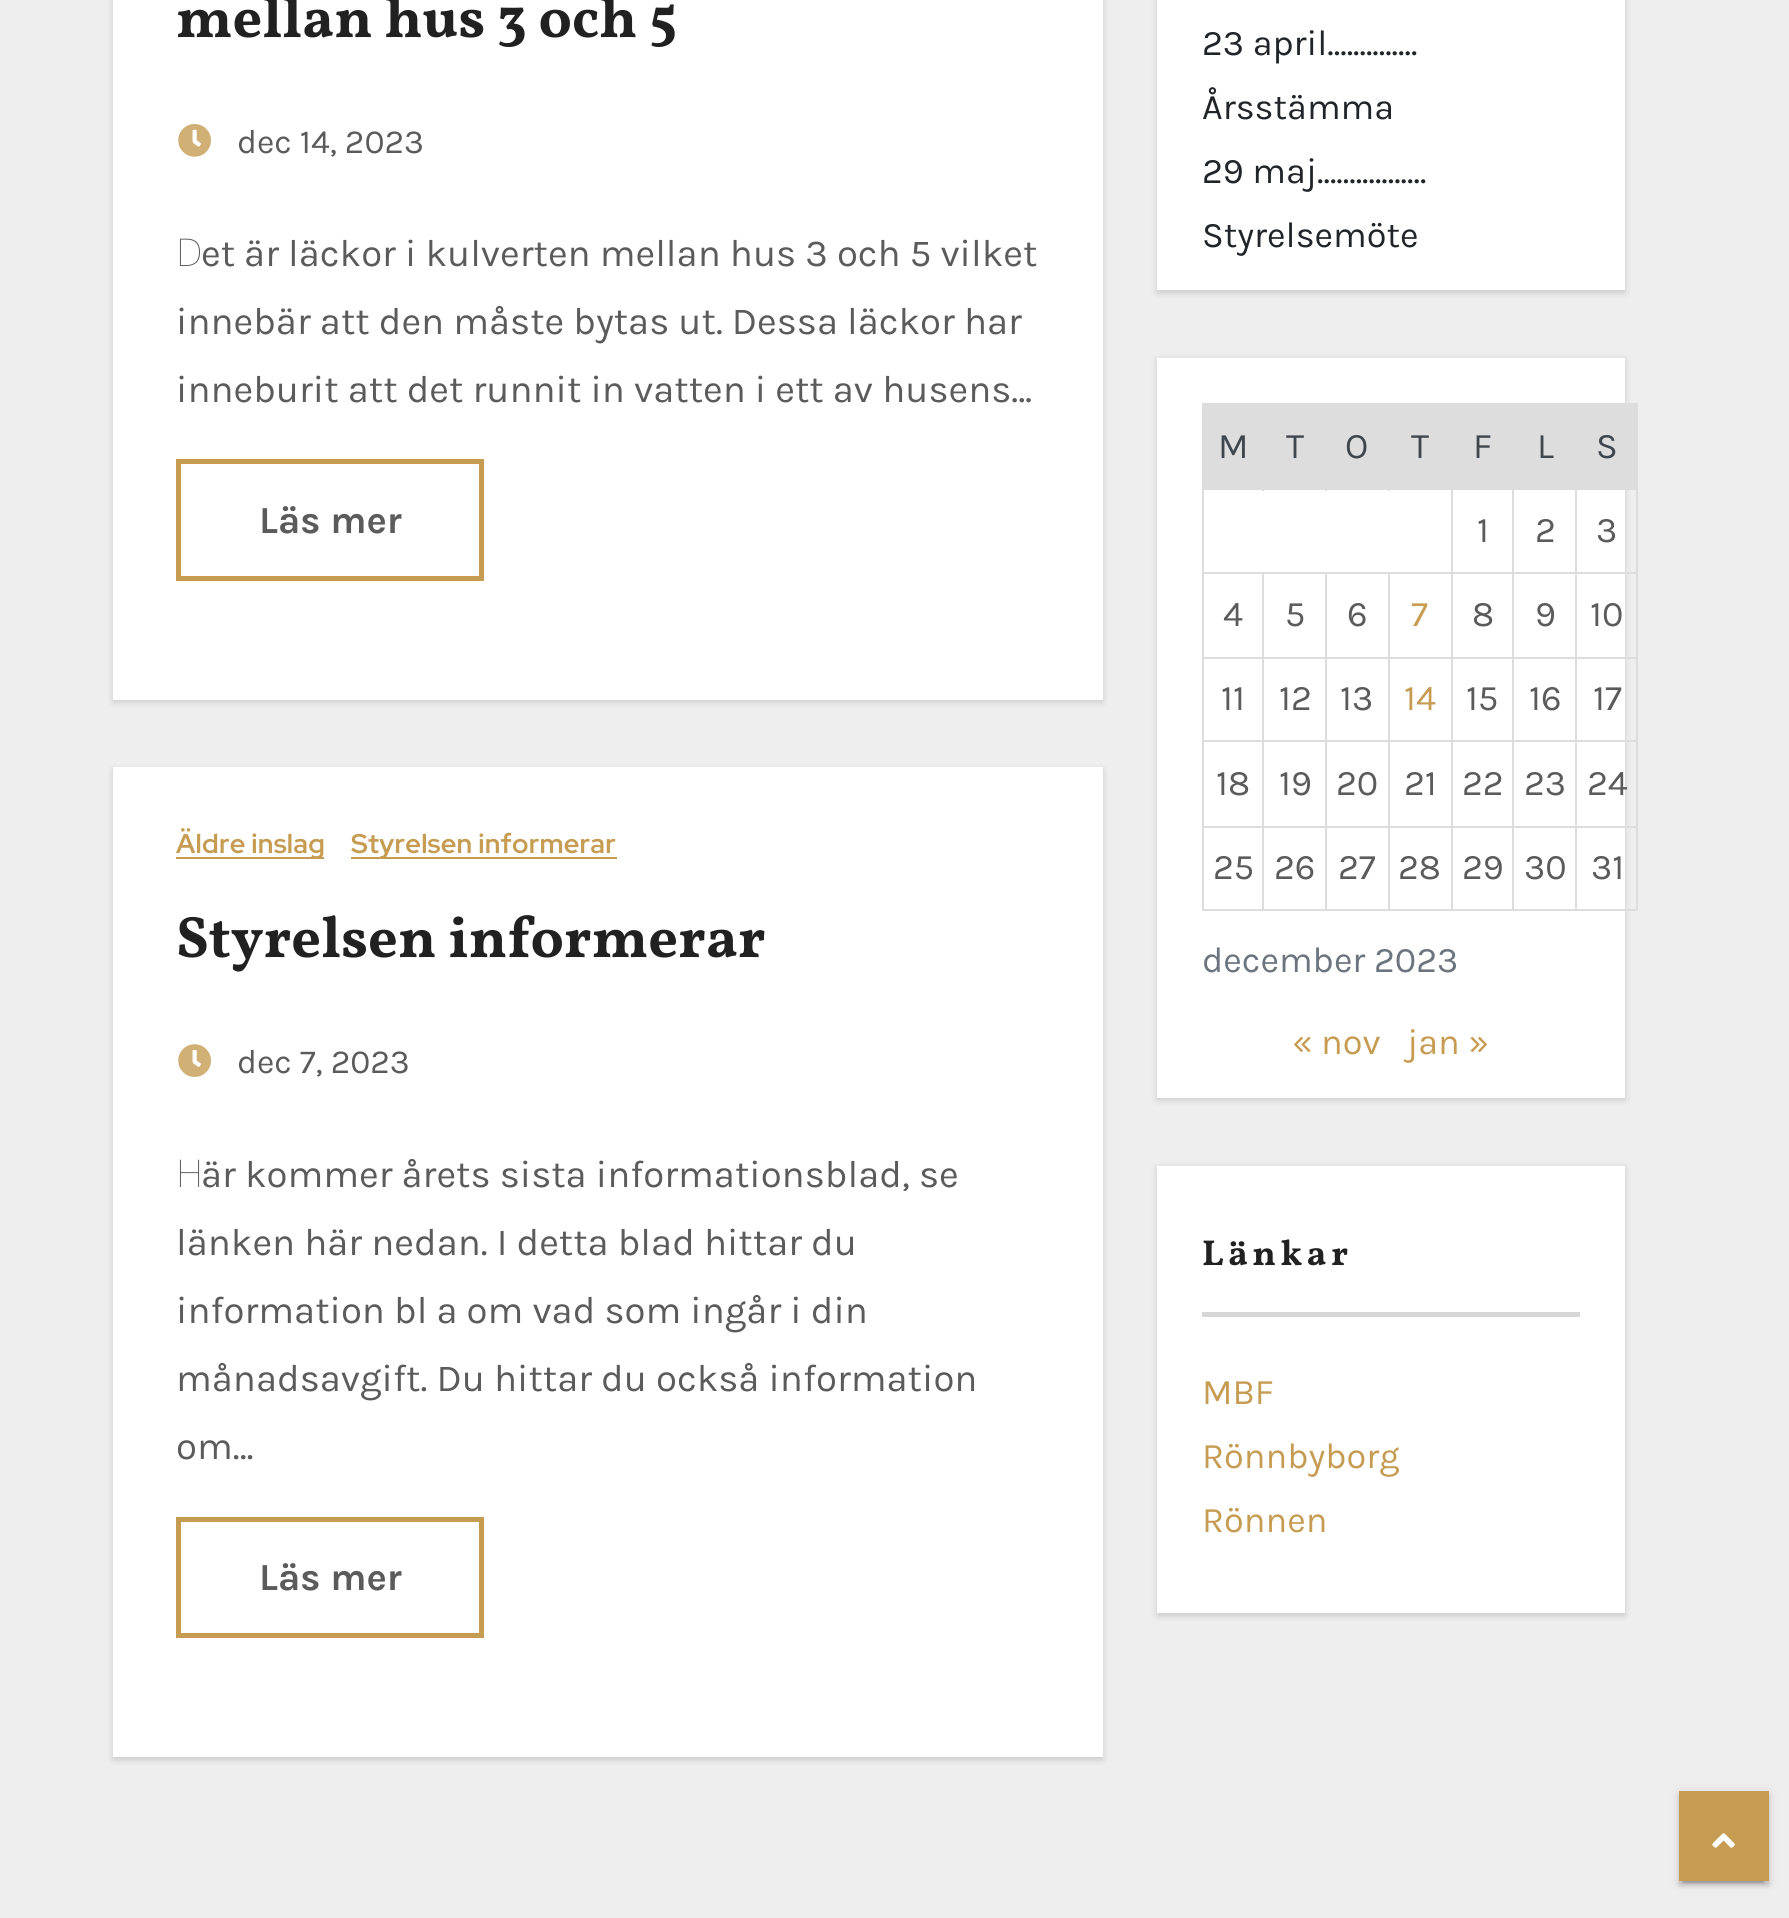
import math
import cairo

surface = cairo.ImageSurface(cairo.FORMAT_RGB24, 1789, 1918)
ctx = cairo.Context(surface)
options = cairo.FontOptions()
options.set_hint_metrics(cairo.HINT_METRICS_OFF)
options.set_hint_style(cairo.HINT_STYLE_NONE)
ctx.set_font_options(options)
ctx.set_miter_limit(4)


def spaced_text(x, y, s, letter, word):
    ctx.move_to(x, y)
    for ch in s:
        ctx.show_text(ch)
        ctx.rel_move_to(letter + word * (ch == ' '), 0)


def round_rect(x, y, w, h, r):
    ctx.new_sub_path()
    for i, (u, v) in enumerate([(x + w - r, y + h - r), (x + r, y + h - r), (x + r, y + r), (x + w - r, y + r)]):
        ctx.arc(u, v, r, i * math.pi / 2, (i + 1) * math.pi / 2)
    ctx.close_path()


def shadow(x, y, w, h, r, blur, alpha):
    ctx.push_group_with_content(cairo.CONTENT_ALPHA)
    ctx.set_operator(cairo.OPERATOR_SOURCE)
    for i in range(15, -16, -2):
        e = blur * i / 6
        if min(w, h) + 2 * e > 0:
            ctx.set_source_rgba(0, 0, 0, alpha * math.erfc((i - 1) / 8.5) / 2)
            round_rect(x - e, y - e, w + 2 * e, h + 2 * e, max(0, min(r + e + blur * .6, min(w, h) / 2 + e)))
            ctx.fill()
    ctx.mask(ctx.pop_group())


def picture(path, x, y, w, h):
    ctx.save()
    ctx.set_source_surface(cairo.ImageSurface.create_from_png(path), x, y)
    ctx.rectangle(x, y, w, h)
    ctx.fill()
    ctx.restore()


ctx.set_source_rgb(0.933, 0.933, 0.933)
ctx.paint()
ctx.set_source_rgb(0, 0, 0)
shadow(113, -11, 990, 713, 0, 3.5, 0.15)
ctx.set_source_rgb(1, 1, 1)
ctx.rectangle(113, 0, 990, 700)
ctx.fill()
ctx.select_font_face("Vollkorn", cairo.FONT_SLANT_NORMAL, cairo.FONT_WEIGHT_BOLD)
ctx.set_font_size(58.5)
ctx.set_source_rgb(0.129, 0.129, 0.129)
ctx.move_to(176, 37)
ctx.show_text("mellan hus 3 och 5")
picture("img1.png", 178, 124, 33, 33)
ctx.select_font_face("Karla")
ctx.set_font_size(33.75)
ctx.set_source_rgb(0.357, 0.357, 0.357)
ctx.move_to(237, 153)
ctx.show_text("dec 14, 2023")
ctx.select_font_face("Noto Sans Thin")
ctx.set_font_size(38.25)
ctx.move_to(176, 266)
ctx.show_text("D")
ctx.select_font_face("Karla")
ctx.move_to(201, 266)
ctx.show_text("et är läckor i kulverten mellan hus 3 och 5 vilket")
ctx.move_to(176, 334)
ctx.show_text("innebär att den måste bytas ut. Dessa läckor har")
ctx.move_to(176, 402)
ctx.show_text("inneburit att det runnit in vatten i ett av husens…")
ctx.rectangle(178.5, 461.5, 303, 117)
ctx.set_source_rgb(0.776, 0.612, 0.325)
ctx.set_line_width(5)
ctx.stroke()
ctx.select_font_face("Karla", cairo.FONT_SLANT_NORMAL, cairo.FONT_WEIGHT_BOLD)
ctx.set_source_rgb(0.357, 0.357, 0.357)
ctx.move_to(259, 533)
ctx.show_text("Läs mer")
ctx.set_source_rgb(0, 0, 0)
shadow(113, 770, 990, 990, 0, 3.5, 0.15)
ctx.set_source_rgb(1, 1, 1)
ctx.rectangle(113, 767, 990, 990)
ctx.fill()
ctx.set_source_rgb(0.776, 0.612, 0.325)
ctx.rectangle(176, 857, 148, 2)
ctx.fill()
ctx.select_font_face("Red Hat Display", cairo.FONT_SLANT_NORMAL, cairo.FONT_WEIGHT_BOLD)
ctx.set_font_size(27)
spaced_text(176, 853, "Äldre inslag", 0.25, 0)
ctx.rectangle(351, 857, 266, 2)
ctx.fill()
spaced_text(351, 853, "Styrelsen informerar", 0.25, 0)
ctx.select_font_face("Vollkorn", cairo.FONT_SLANT_NORMAL, cairo.FONT_WEIGHT_BOLD)
ctx.set_font_size(58.5)
ctx.set_source_rgb(0.129, 0.129, 0.129)
ctx.move_to(176, 957)
ctx.show_text("Styrelsen informerar")
picture("img2.png", 178, 1044, 33, 33)
ctx.select_font_face("Karla")
ctx.set_font_size(33.75)
ctx.set_source_rgb(0.357, 0.357, 0.357)
ctx.move_to(237, 1073)
ctx.show_text("dec 7, 2023")
ctx.select_font_face("Noto Sans Thin")
ctx.set_font_size(38.25)
ctx.move_to(176, 1187)
ctx.show_text("H")
ctx.select_font_face("Karla")
ctx.move_to(201, 1187)
ctx.show_text("är kommer årets sista informationsblad, se")
ctx.move_to(176, 1255)
ctx.show_text("länken här nedan. I detta blad hittar du")
ctx.move_to(176, 1323)
ctx.show_text("information bl a om vad som ingår i din")
ctx.move_to(176, 1391)
ctx.show_text("månadsavgift. Du hittar du också information")
ctx.move_to(176, 1459)
ctx.show_text("om…")
ctx.rectangle(178.5, 1519.5, 303, 116)
ctx.set_source_rgb(0.776, 0.612, 0.325)
ctx.stroke()
ctx.select_font_face("Karla", cairo.FONT_SLANT_NORMAL, cairo.FONT_WEIGHT_BOLD)
ctx.set_source_rgb(0.357, 0.357, 0.357)
ctx.move_to(259, 1590)
ctx.show_text("Läs mer")
ctx.set_source_rgb(0, 0, 0)
shadow(1157, -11, 468, 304, 0, 3.5, 0.15)
ctx.set_source_rgb(1, 1, 1)
ctx.rectangle(1157, 0, 468, 290)
ctx.fill()
ctx.select_font_face("Karla")
ctx.set_font_size(36)
ctx.set_source_rgb(0.129, 0.145, 0.161)
ctx.move_to(1202, 55)
ctx.show_text("23 april..............")
ctx.move_to(1202, 119)
ctx.show_text("Årsstämma")
ctx.move_to(1202, 183)
ctx.show_text("29 maj.................")
ctx.move_to(1202, 247)
ctx.show_text("Styrelsemöte")
ctx.set_source_rgb(0, 0, 0)
shadow(1157, 360, 468, 740, 0, 3.5, 0.15)
ctx.set_source_rgb(1, 1, 1)
ctx.rectangle(1157, 358, 468, 740)
ctx.fill()
ctx.set_source_rgb(0.867, 0.867, 0.867)
ctx.rectangle(1204, 405, 121, 83)
ctx.fill()
ctx.rectangle(1388, 403, 250, 2)
ctx.fill()
ctx.rectangle(1575, 488, 63, 2)
ctx.fill()
ctx.rectangle(1575, 572, 63, 2)
ctx.fill()
ctx.rectangle(1575, 657, 63, 2)
ctx.fill()
ctx.rectangle(1575, 740, 63, 2)
ctx.fill()
ctx.rectangle(1575, 826, 63, 2)
ctx.fill()
ctx.rectangle(1636, 826, 2, 85)
ctx.fill()
ctx.rectangle(1575, 909, 63, 2)
ctx.fill()
ctx.rectangle(1575, 826, 2, 85)
ctx.fill()
ctx.rectangle(1512, 826, 65, 2)
ctx.fill()
ctx.rectangle(1575, 740, 2, 88)
ctx.fill()
ctx.rectangle(1512, 740, 65, 2)
ctx.fill()
ctx.rectangle(1575, 657, 2, 86)
ctx.fill()
ctx.rectangle(1512, 657, 65, 2)
ctx.fill()
ctx.rectangle(1575, 572, 2, 87)
ctx.fill()
ctx.rectangle(1512, 572, 65, 2)
ctx.fill()
ctx.rectangle(1575, 488, 2, 86)
ctx.fill()
ctx.rectangle(1512, 488, 65, 2)
ctx.fill()
ctx.rectangle(1512, 909, 65, 2)
ctx.fill()
ctx.rectangle(1512, 826, 2, 85)
ctx.fill()
ctx.rectangle(1451, 826, 63, 2)
ctx.fill()
ctx.rectangle(1512, 740, 2, 88)
ctx.fill()
ctx.rectangle(1451, 740, 63, 2)
ctx.fill()
ctx.rectangle(1512, 657, 2, 86)
ctx.fill()
ctx.rectangle(1451, 657, 63, 2)
ctx.fill()
ctx.rectangle(1512, 572, 2, 87)
ctx.fill()
ctx.rectangle(1451, 572, 63, 2)
ctx.fill()
ctx.rectangle(1512, 488, 2, 86)
ctx.fill()
ctx.rectangle(1451, 488, 63, 2)
ctx.fill()
ctx.rectangle(1451, 909, 63, 2)
ctx.fill()
ctx.rectangle(1451, 826, 2, 85)
ctx.fill()
ctx.rectangle(1388, 826, 66, 2)
ctx.fill()
ctx.rectangle(1451, 740, 2, 88)
ctx.fill()
ctx.rectangle(1388, 740, 66, 2)
ctx.fill()
ctx.rectangle(1451, 657, 2, 86)
ctx.fill()
ctx.rectangle(1388, 657, 66, 2)
ctx.fill()
ctx.rectangle(1451, 572, 2, 87)
ctx.fill()
ctx.rectangle(1388, 572, 66, 2)
ctx.fill()
ctx.rectangle(1451, 488, 2, 86)
ctx.fill()
ctx.rectangle(1202, 488, 252, 2)
ctx.fill()
ctx.rectangle(1388, 403, 2, 88)
ctx.fill()
ctx.rectangle(1325, 403, 66, 2)
ctx.fill()
ctx.rectangle(1325, 403, 2, 88)
ctx.fill()
ctx.rectangle(1202, 403, 126, 2)
ctx.fill()
ctx.rectangle(1388, 909, 66, 2)
ctx.fill()
ctx.rectangle(1388, 826, 2, 85)
ctx.fill()
ctx.rectangle(1325, 826, 66, 2)
ctx.fill()
ctx.rectangle(1388, 740, 2, 88)
ctx.fill()
ctx.rectangle(1325, 740, 66, 2)
ctx.fill()
ctx.rectangle(1388, 657, 2, 86)
ctx.fill()
ctx.rectangle(1325, 657, 66, 2)
ctx.fill()
ctx.rectangle(1388, 572, 2, 87)
ctx.fill()
ctx.rectangle(1325, 572, 66, 2)
ctx.fill()
ctx.rectangle(1325, 909, 66, 2)
ctx.fill()
ctx.rectangle(1325, 826, 2, 85)
ctx.fill()
ctx.rectangle(1262, 826, 66, 2)
ctx.fill()
ctx.rectangle(1325, 740, 2, 88)
ctx.fill()
ctx.rectangle(1262, 740, 66, 2)
ctx.fill()
ctx.rectangle(1325, 657, 2, 86)
ctx.fill()
ctx.rectangle(1262, 657, 66, 2)
ctx.fill()
ctx.rectangle(1325, 572, 2, 87)
ctx.fill()
ctx.rectangle(1262, 572, 66, 2)
ctx.fill()
ctx.rectangle(1262, 909, 66, 2)
ctx.fill()
ctx.rectangle(1262, 826, 2, 85)
ctx.fill()
ctx.rectangle(1202, 826, 63, 2)
ctx.fill()
ctx.rectangle(1262, 740, 2, 88)
ctx.fill()
ctx.rectangle(1202, 740, 63, 2)
ctx.fill()
ctx.rectangle(1262, 657, 2, 86)
ctx.fill()
ctx.rectangle(1202, 657, 63, 2)
ctx.fill()
ctx.rectangle(1262, 572, 2, 87)
ctx.fill()
ctx.rectangle(1202, 572, 63, 2)
ctx.fill()
ctx.rectangle(1202, 909, 63, 2)
ctx.fill()
ctx.rectangle(1202, 826, 2, 85)
ctx.fill()
ctx.rectangle(1202, 740, 2, 88)
ctx.fill()
ctx.rectangle(1202, 657, 2, 86)
ctx.fill()
ctx.rectangle(1202, 572, 2, 87)
ctx.fill()
ctx.rectangle(1202, 488, 2, 86)
ctx.fill()
ctx.rectangle(1202, 403, 2, 88)
ctx.fill()
ctx.set_source_rgb(0.251, 0.275, 0.302)
ctx.move_to(1218, 458)
ctx.show_text("M")
ctx.set_source_rgb(0.867, 0.867, 0.867)
ctx.rectangle(1262, 490, 2, 1)
ctx.fill()
ctx.set_source_rgb(0.251, 0.275, 0.302)
ctx.move_to(1286, 458)
ctx.show_text("T")
ctx.set_source_rgb(0.867, 0.867, 0.867)
ctx.rectangle(1327, 405, 61, 83)
ctx.fill()
ctx.set_source_rgb(0.251, 0.275, 0.302)
ctx.move_to(1345, 458)
ctx.show_text("O")
ctx.set_source_rgb(0.867, 0.867, 0.867)
ctx.rectangle(1390, 405, 248, 83)
ctx.fill()
ctx.set_source_rgb(0.251, 0.275, 0.302)
ctx.move_to(1411, 458)
ctx.show_text("T")
ctx.move_to(1473, 458)
ctx.show_text("F")
ctx.move_to(1537, 458)
ctx.show_text("L")
ctx.move_to(1596, 458)
ctx.show_text("S")
ctx.set_source_rgb(0.357, 0.357, 0.357)
ctx.move_to(1477, 542)
ctx.show_text("1")
ctx.move_to(1535, 542)
ctx.show_text("2")
ctx.set_source_rgb(0.867, 0.867, 0.867)
ctx.rectangle(1636, 740, 2, 88)
ctx.fill()
ctx.rectangle(1636, 657, 2, 86)
ctx.fill()
ctx.rectangle(1636, 572, 2, 87)
ctx.fill()
ctx.rectangle(1636, 488, 2, 86)
ctx.fill()
ctx.set_source_rgb(0.357, 0.357, 0.357)
ctx.move_to(1596, 542)
ctx.show_text("3")
ctx.move_to(1223, 626)
ctx.show_text("4")
ctx.move_to(1285, 626)
ctx.show_text("5")
ctx.move_to(1347, 626)
ctx.show_text("6")
ctx.set_source_rgb(0.776, 0.612, 0.325)
ctx.move_to(1411, 626)
ctx.show_text("7")
ctx.set_source_rgb(0.357, 0.357, 0.357)
ctx.move_to(1472, 626)
ctx.show_text("8")
ctx.move_to(1535, 626)
ctx.show_text("9")
ctx.move_to(1590, 626)
ctx.show_text("10")
ctx.move_to(1221, 710)
ctx.show_text("11")
ctx.move_to(1279, 710)
ctx.show_text("12")
ctx.move_to(1340, 710)
ctx.show_text("13")
ctx.set_source_rgb(0.776, 0.612, 0.325)
ctx.move_to(1404, 710)
ctx.show_text("14")
ctx.set_source_rgb(0.357, 0.357, 0.357)
ctx.move_to(1466, 710)
ctx.show_text("15")
ctx.move_to(1529, 710)
ctx.show_text("16")
ctx.move_to(1593, 710)
ctx.show_text("17")
ctx.move_to(1216, 795)
ctx.show_text("18")
ctx.move_to(1279, 795)
ctx.show_text("19")
ctx.move_to(1336, 795)
ctx.show_text("20")
ctx.move_to(1404, 795)
ctx.show_text("21")
ctx.move_to(1462, 795)
ctx.show_text("22")
ctx.move_to(1524, 795)
ctx.show_text("23")
ctx.move_to(1587, 795)
ctx.show_text("24")
ctx.move_to(1213, 879)
ctx.show_text("25")
ctx.move_to(1274, 879)
ctx.show_text("26")
ctx.move_to(1338, 879)
ctx.show_text("27")
ctx.move_to(1398, 879)
ctx.show_text("28")
ctx.move_to(1462, 879)
ctx.show_text("29")
ctx.move_to(1524, 879)
ctx.show_text("30")
ctx.move_to(1591, 879)
ctx.show_text("31")
ctx.set_source_rgb(0.424, 0.459, 0.49)
ctx.move_to(1202, 972)
ctx.show_text("december 2023")
ctx.set_source_rgb(0.776, 0.612, 0.325)
ctx.move_to(1292, 1054)
ctx.show_text("« nov")
ctx.move_to(1407, 1054)
ctx.show_text("jan »")
ctx.set_source_rgb(0, 0, 0)
shadow(1157, 1168, 468, 448, 0, 3.5, 0.15)
ctx.set_source_rgb(1, 1, 1)
ctx.rectangle(1157, 1166, 468, 447)
ctx.fill()
ctx.set_source_rgb(0.843, 0.843, 0.843)
ctx.rectangle(1202, 1312, 378, 5)
ctx.fill()
ctx.select_font_face("Vollkorn", cairo.FONT_SLANT_NORMAL, cairo.FONT_WEIGHT_BOLD)
ctx.set_source_rgb(0.129, 0.129, 0.129)
spaced_text(1202, 1265, "Länkar", 4.5, 0)
ctx.select_font_face("Karla")
ctx.set_source_rgb(0.776, 0.612, 0.325)
ctx.move_to(1202, 1404)
ctx.show_text("MBF")
ctx.move_to(1202, 1468)
ctx.show_text("Rönnbyborg")
ctx.move_to(1202, 1532)
ctx.show_text("Rönnen")
ctx.set_source_rgb(0, 0, 0)
shadow(1679, 1793, 90, 90, 0, 5.5, 0.12)
shadow(1683, 1802, 81, 81, 0, 1, 0.2)
shadow(1679, 1796, 90, 90, 0, 2, 0.14)
ctx.set_source_rgb(0.776, 0.612, 0.325)
ctx.rectangle(1679, 1791, 90, 90)
ctx.fill()
picture("img3.png", 1712, 1833, 23, 15)
surface.write_to_png("page.png")
